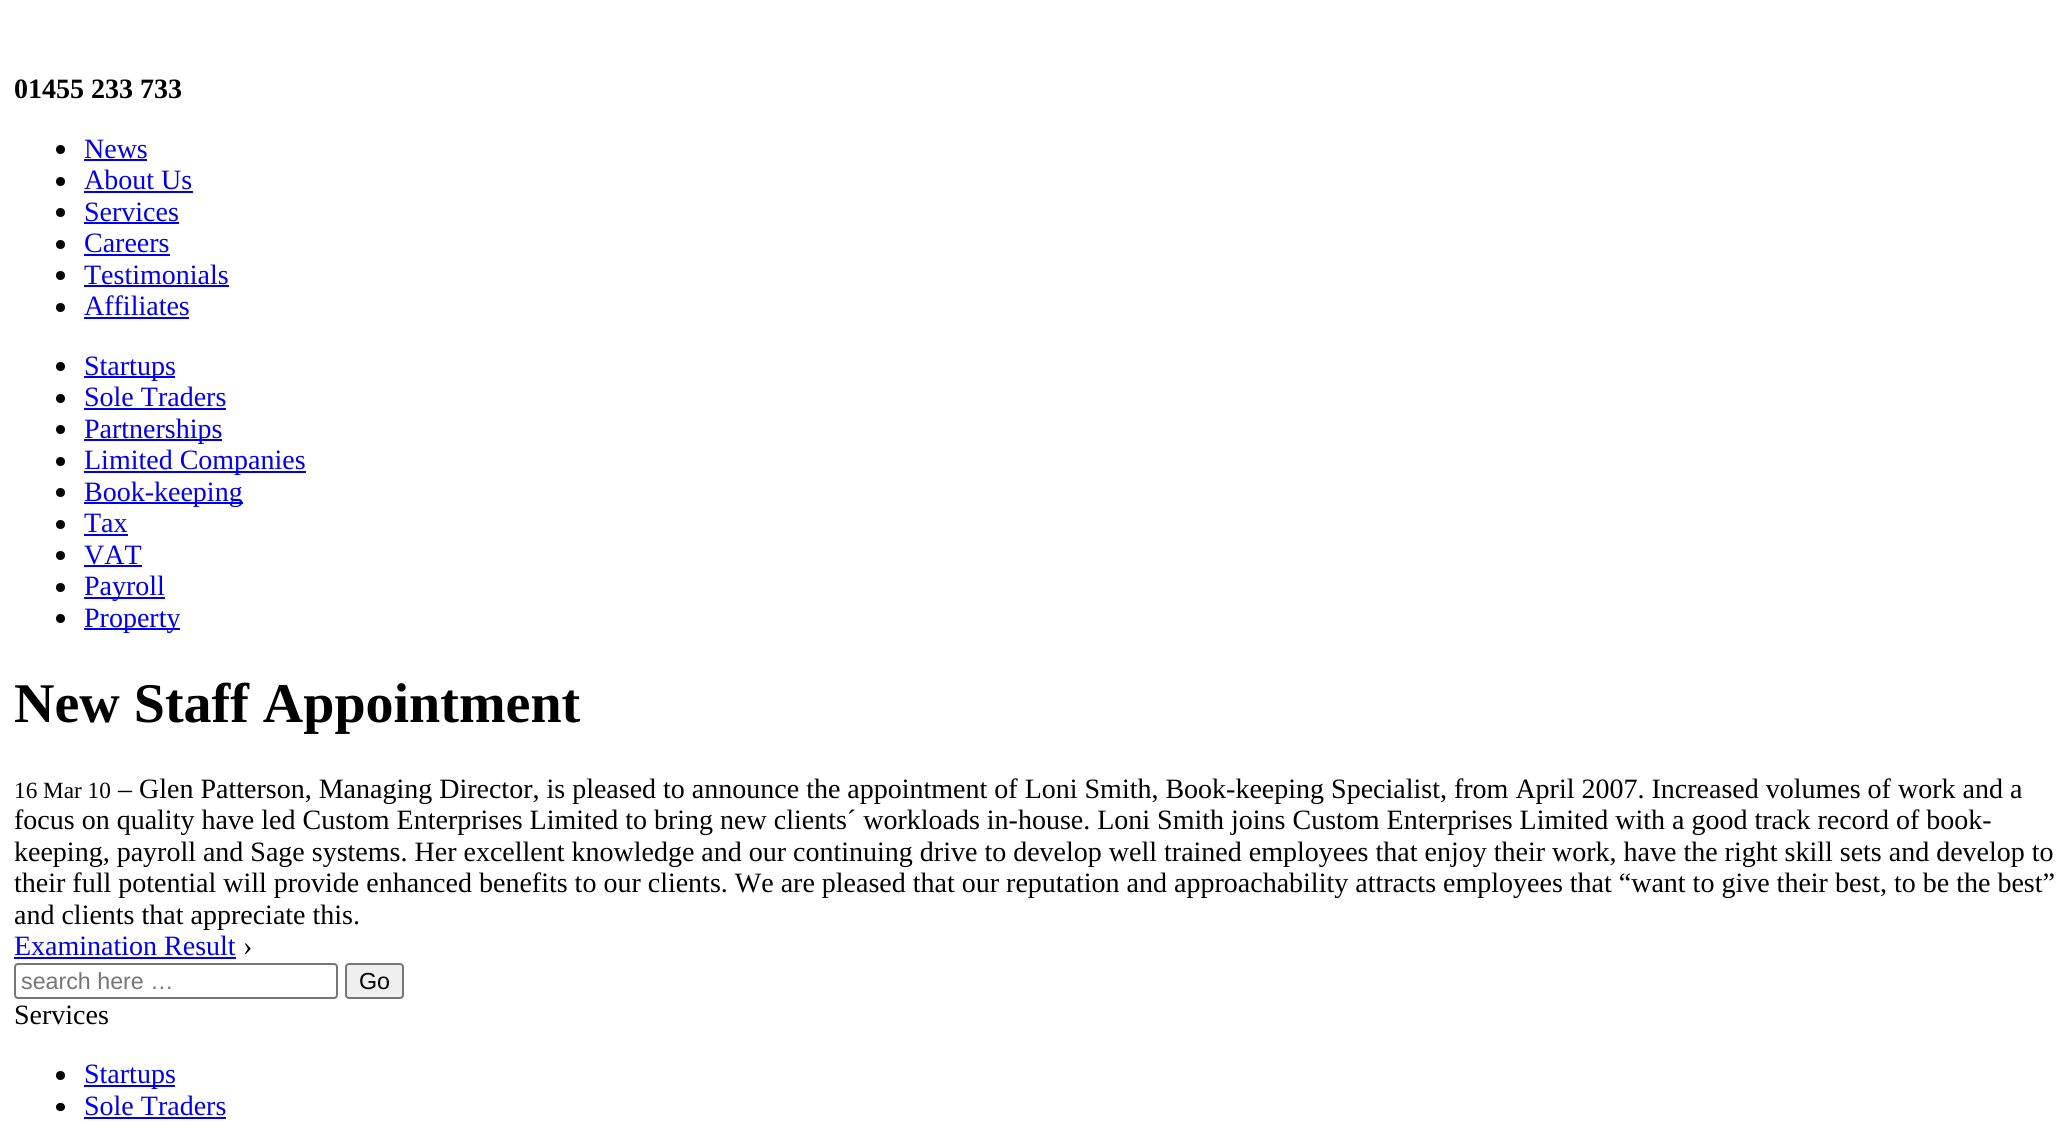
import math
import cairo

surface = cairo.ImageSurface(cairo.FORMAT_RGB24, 2071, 1128)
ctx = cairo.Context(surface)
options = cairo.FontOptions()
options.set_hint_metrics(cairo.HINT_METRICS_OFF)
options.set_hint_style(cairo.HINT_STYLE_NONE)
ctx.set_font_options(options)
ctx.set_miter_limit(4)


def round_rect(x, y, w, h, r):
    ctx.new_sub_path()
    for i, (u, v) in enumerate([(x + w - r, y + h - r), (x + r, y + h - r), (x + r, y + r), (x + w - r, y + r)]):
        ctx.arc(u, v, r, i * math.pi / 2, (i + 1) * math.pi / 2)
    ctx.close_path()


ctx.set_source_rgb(1, 1, 1)
ctx.paint()
ctx.select_font_face("Liberation Serif", cairo.FONT_SLANT_NORMAL, cairo.FONT_WEIGHT_BOLD)
ctx.set_font_size(28)
ctx.set_source_rgb(0, 0, 0)
ctx.move_to(14, 98)
ctx.show_text("01455 233 733")
ctx.new_path()
ctx.arc(60.5, 149.5, 4.5, 0, 2 * math.pi)
ctx.fill()
ctx.select_font_face("Liberation Serif")
ctx.set_source_rgb(0, 0, 0.933)
ctx.move_to(84, 158)
ctx.show_text("News")
ctx.rectangle(84, 159, 63, 2)
ctx.fill()
ctx.set_source_rgb(0, 0, 0)
ctx.arc(60.5, 181.5, 4.5, 0, 2 * math.pi)
ctx.fill()
ctx.set_source_rgb(0, 0, 0.933)
ctx.move_to(84, 189)
ctx.show_text("About Us")
ctx.rectangle(84, 191, 109, 2)
ctx.fill()
ctx.set_source_rgb(0, 0, 0)
ctx.arc(60.5, 212.5, 4.5, 0, 2 * math.pi)
ctx.fill()
ctx.set_source_rgb(0, 0, 0.933)
ctx.move_to(84, 221)
ctx.show_text("Services")
ctx.rectangle(84, 222, 95, 2)
ctx.fill()
ctx.set_source_rgb(0, 0, 0)
ctx.arc(60.5, 244.5, 4.5, 0, 2 * math.pi)
ctx.fill()
ctx.set_source_rgb(0, 0, 0.933)
ctx.move_to(84, 252)
ctx.show_text("Careers")
ctx.rectangle(84, 254, 86, 2)
ctx.fill()
ctx.set_source_rgb(0, 0, 0)
ctx.arc(60.5, 275.5, 4.5, 0, 2 * math.pi)
ctx.fill()
ctx.set_source_rgb(0, 0, 0.933)
ctx.move_to(84, 284)
ctx.show_text("Testimonials")
ctx.rectangle(84, 285, 145, 2)
ctx.fill()
ctx.set_source_rgb(0, 0, 0)
ctx.arc(60.5, 307.5, 4.5, 0, 2 * math.pi)
ctx.fill()
ctx.set_source_rgb(0, 0, 0.933)
ctx.move_to(84, 315)
ctx.show_text("Affiliates")
ctx.rectangle(84, 317, 105, 2)
ctx.fill()
ctx.set_source_rgb(0, 0, 0)
ctx.arc(60.5, 366.5, 4.5, 0, 2 * math.pi)
ctx.fill()
ctx.set_source_rgb(0, 0, 0.933)
ctx.rectangle(84, 376, 91, 2)
ctx.fill()
ctx.move_to(84, 375)
ctx.show_text("Startups")
ctx.set_source_rgb(0, 0, 0)
ctx.new_path()
ctx.arc(60.5, 398.5, 4.5, 0, 2 * math.pi)
ctx.fill()
ctx.set_source_rgb(0, 0, 0.933)
ctx.move_to(84, 406)
ctx.show_text("Sole Traders")
ctx.rectangle(84, 408, 142, 2)
ctx.fill()
ctx.set_source_rgb(0, 0, 0)
ctx.arc(60.5, 429.5, 4.5, 0, 2 * math.pi)
ctx.fill()
ctx.set_source_rgb(0, 0, 0.933)
ctx.rectangle(84, 439, 138, 2)
ctx.fill()
ctx.move_to(84, 438)
ctx.show_text("Partnerships")
ctx.set_source_rgb(0, 0, 0)
ctx.new_path()
ctx.arc(60.5, 461.5, 4.5, 0, 2 * math.pi)
ctx.fill()
ctx.set_source_rgb(0, 0, 0.933)
ctx.rectangle(84, 471, 222, 2)
ctx.fill()
ctx.move_to(84, 469)
ctx.show_text("Limited Companies")
ctx.set_source_rgb(0, 0, 0)
ctx.new_path()
ctx.arc(60.5, 492.5, 4.5, 0, 2 * math.pi)
ctx.fill()
ctx.set_source_rgb(0, 0, 0.933)
ctx.rectangle(84, 502, 159, 2)
ctx.fill()
ctx.move_to(84, 501)
ctx.show_text("Book-keeping")
ctx.set_source_rgb(0, 0, 0)
ctx.new_path()
ctx.arc(60.5, 524.5, 4.5, 0, 2 * math.pi)
ctx.fill()
ctx.set_source_rgb(0, 0, 0.933)
ctx.move_to(84, 532)
ctx.show_text("Tax")
ctx.rectangle(84, 534, 44, 2)
ctx.fill()
ctx.set_source_rgb(0, 0, 0)
ctx.arc(60.5, 555.5, 4.5, 0, 2 * math.pi)
ctx.fill()
ctx.set_source_rgb(0, 0, 0.933)
ctx.move_to(84, 564)
ctx.show_text("VAT")
ctx.rectangle(84, 565, 58, 2)
ctx.fill()
ctx.set_source_rgb(0, 0, 0)
ctx.arc(60.5, 587.5, 4.5, 0, 2 * math.pi)
ctx.fill()
ctx.set_source_rgb(0, 0, 0.933)
ctx.rectangle(84, 597, 81, 2)
ctx.fill()
ctx.move_to(84, 595)
ctx.show_text("Payroll")
ctx.set_source_rgb(0, 0, 0)
ctx.new_path()
ctx.arc(60.5, 618.5, 4.5, 0, 2 * math.pi)
ctx.fill()
ctx.set_source_rgb(0, 0, 0.933)
ctx.rectangle(84, 628, 96, 2)
ctx.fill()
ctx.move_to(84, 627)
ctx.show_text("Property")
ctx.select_font_face("Liberation Serif", cairo.FONT_SLANT_NORMAL, cairo.FONT_WEIGHT_BOLD)
ctx.set_font_size(56)
ctx.set_source_rgb(0, 0, 0)
ctx.move_to(14, 722)
ctx.show_text("New Staff Appointment")
ctx.select_font_face("Liberation Serif")
ctx.set_font_size(23.25)
ctx.move_to(14, 798)
ctx.show_text("16 Mar 10")
ctx.set_font_size(28)
ctx.move_to(118, 798)
ctx.show_text("– Glen Patterson, Managing Director, is pleased to announce the appointment of Loni Smith, Book-keeping Specialist, from April 2007. Increased volumes of work and a")
ctx.move_to(14, 829)
ctx.show_text("focus on quality have led Custom Enterprises Limited to bring new clients´ workloads in-house. Loni Smith joins Custom Enterprises Limited with a good track record of book-")
ctx.move_to(14, 861)
ctx.show_text("keeping, payroll and Sage systems. Her excellent knowledge and our continuing drive to develop well trained employees that enjoy their work, have the right skill sets and develop to")
ctx.move_to(14, 892)
ctx.show_text("their full potential will provide enhanced benefits to our clients. We are pleased that our reputation and approachability attracts employees that “want to give their best, to be the best”")
ctx.move_to(14, 924)
ctx.show_text("and clients that appreciate this.")
ctx.set_source_rgb(0, 0, 0.933)
ctx.move_to(14, 955)
ctx.show_text("Examination Result")
ctx.rectangle(14, 957, 222, 2)
ctx.fill()
ctx.set_source_rgb(0, 0, 0)
ctx.move_to(243, 955)
ctx.show_text("›")
round_rect(15, 964, 322, 34, 3)
ctx.set_source_rgb(0.463, 0.463, 0.463)
ctx.stroke()
ctx.select_font_face("Liberation Sans")
ctx.set_font_size(23.25)
ctx.set_source_rgb(0.459, 0.459, 0.459)
ctx.move_to(21, 989)
ctx.show_text("search here …")
ctx.set_source_rgb(0.937, 0.937, 0.937)
round_rect(346, 964, 57, 34, 3)
ctx.fill_preserve()
ctx.set_source_rgb(0.463, 0.463, 0.463)
ctx.stroke()
ctx.set_source_rgb(0, 0, 0)
ctx.move_to(359, 989)
ctx.show_text("Go")
ctx.select_font_face("Liberation Serif")
ctx.set_font_size(28)
ctx.move_to(14, 1024)
ctx.show_text("Services")
ctx.new_path()
ctx.arc(60.5, 1075.5, 4.5, 0, 2 * math.pi)
ctx.fill()
ctx.set_source_rgb(0, 0, 0.933)
ctx.rectangle(84, 1085, 91, 2)
ctx.fill()
ctx.move_to(84, 1083)
ctx.show_text("Startups")
ctx.set_source_rgb(0, 0, 0)
round_rect(56, 1103, 9, 8, 4)
ctx.fill()
ctx.set_source_rgb(0, 0, 0.933)
ctx.move_to(84, 1115)
ctx.show_text("Sole Traders")
ctx.rectangle(84, 1117, 142, 2)
ctx.fill()
surface.write_to_png("page.png")
